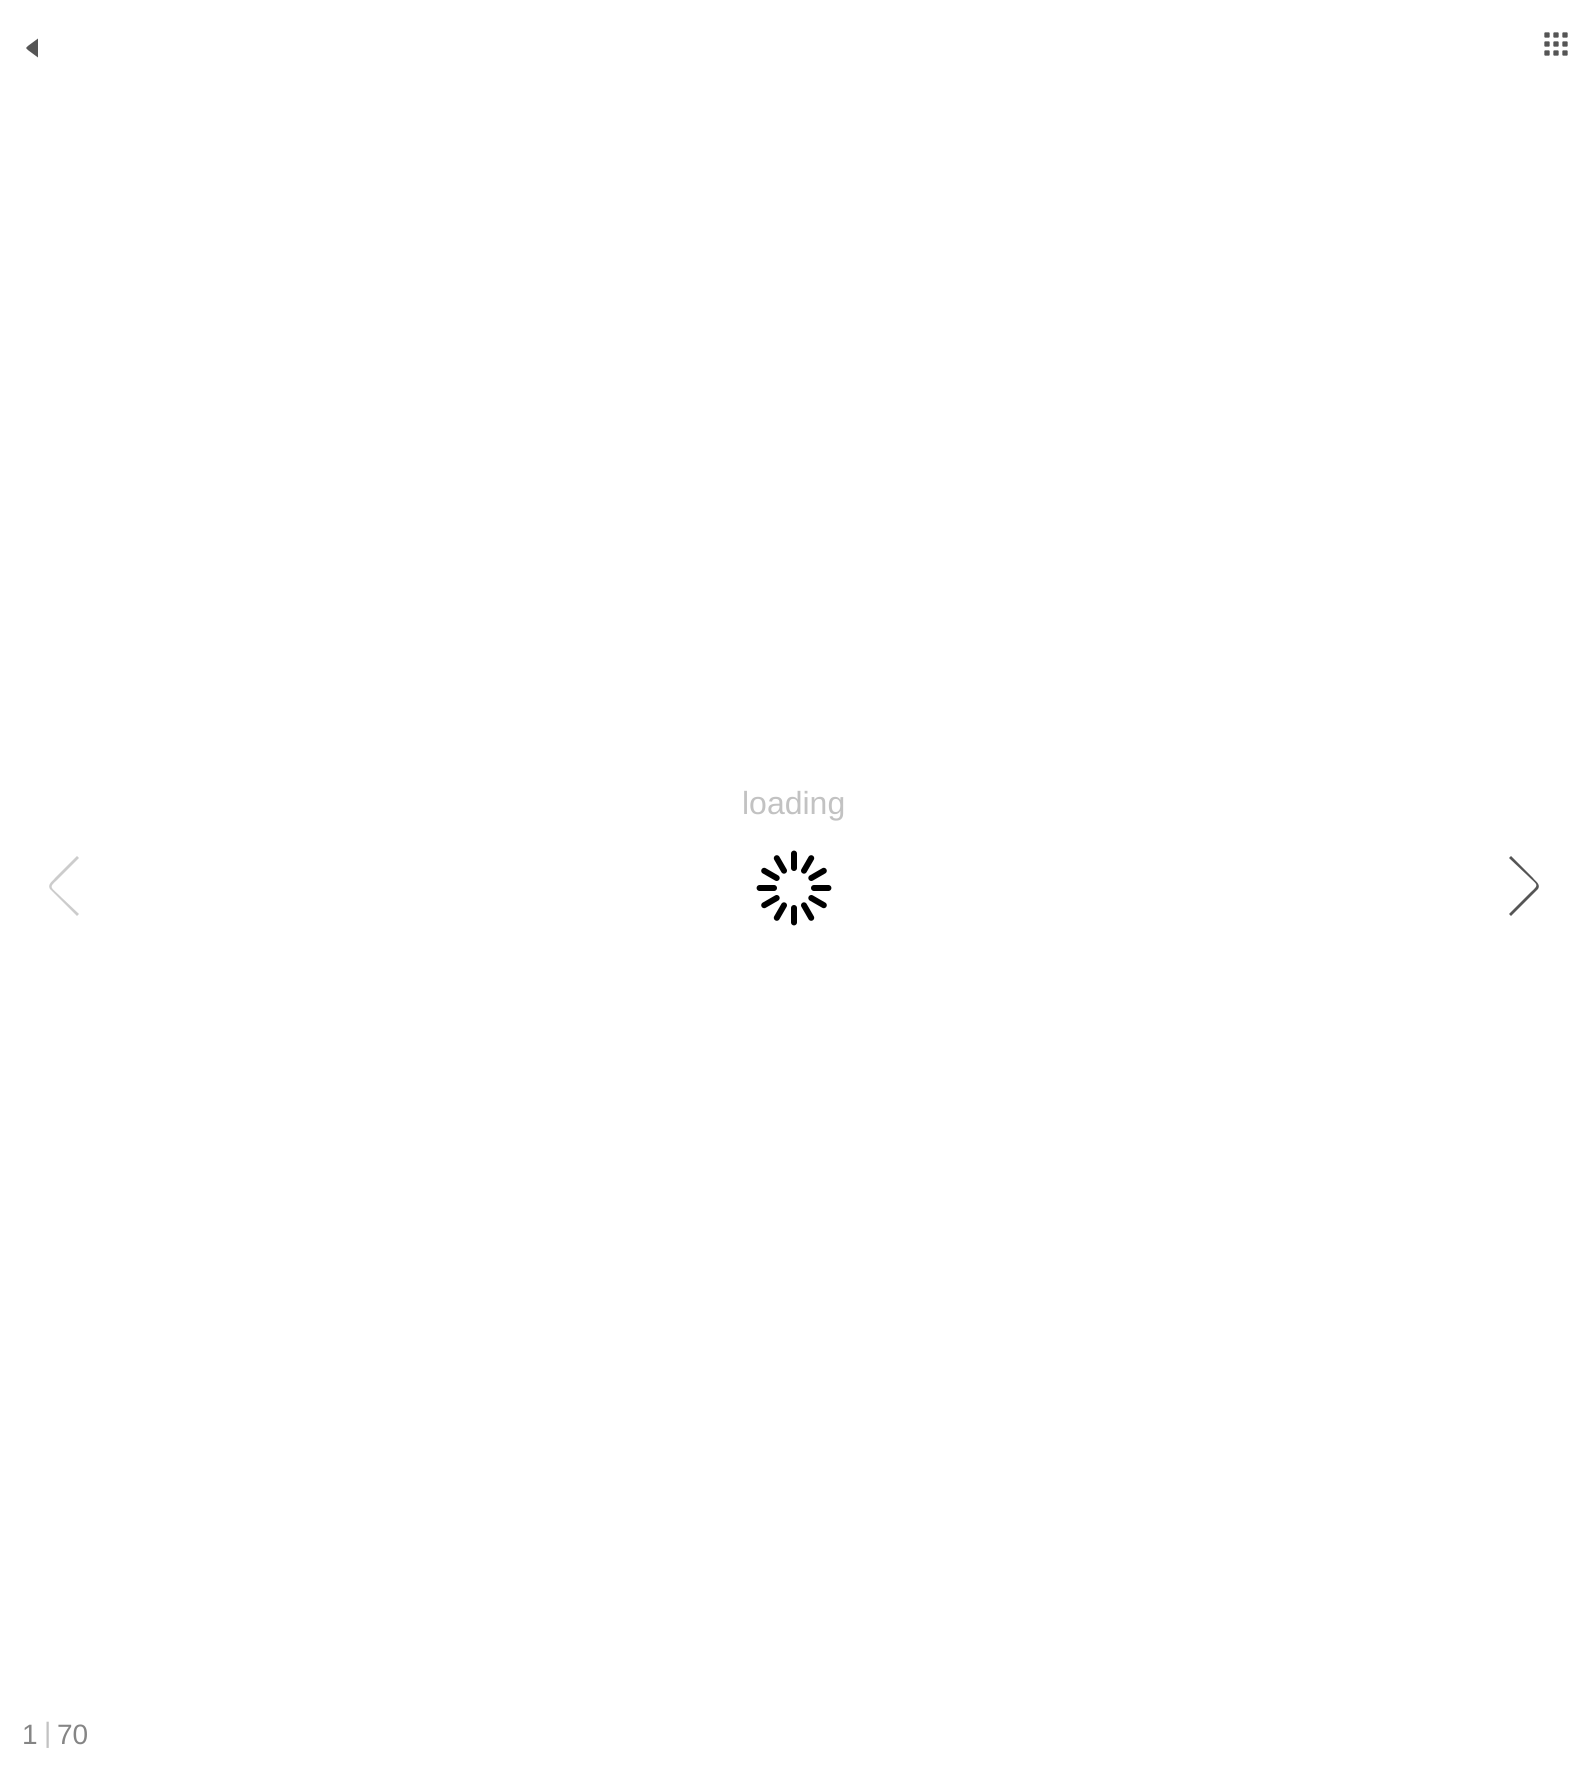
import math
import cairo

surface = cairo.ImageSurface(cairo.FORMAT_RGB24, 1587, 1776)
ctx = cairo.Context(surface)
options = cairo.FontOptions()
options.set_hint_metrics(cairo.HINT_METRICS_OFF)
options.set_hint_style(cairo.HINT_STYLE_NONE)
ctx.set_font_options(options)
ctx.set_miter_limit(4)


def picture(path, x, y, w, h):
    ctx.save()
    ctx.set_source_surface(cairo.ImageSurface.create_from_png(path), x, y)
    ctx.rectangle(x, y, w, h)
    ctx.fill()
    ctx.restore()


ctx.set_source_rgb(1, 1, 1)
ctx.paint()
ctx.set_source_rgb(0.333, 0.333, 0.333)
ctx.new_path()
ctx.move_to(38, 57.5)
ctx.line_to(28.5, 50.5)
ctx.curve_to(25.5, 48, 25.5, 48, 28.5, 45.5)
ctx.line_to(38, 38.5)
ctx.close_path()
ctx.fill()
picture("img1.png", 1544, 32, 24, 24)
ctx.select_font_face("Liberation Sans")
ctx.set_font_size(32)
ctx.set_source_rgb(0.761, 0.761, 0.761)
ctx.move_to(742, 814)
ctx.show_text("loading")
ctx.set_source_rgb(0.8, 0.8, 0.8)
ctx.new_path()
ctx.move_to(77, 916)
ctx.line_to(50, 889)
ctx.curve_to(47, 884, 53, 881, 55, 878)
ctx.line_to(77, 856)
ctx.line_to(79, 858)
ctx.line_to(57, 880)
ctx.curve_to(48, 888, 51, 887, 61, 897)
ctx.line_to(79, 914)
ctx.close_path()
ctx.fill()
ctx.set_source_rgb(0.333, 0.333, 0.333)
ctx.new_path()
ctx.move_to(1511, 856)
ctx.line_to(1533, 878)
ctx.curve_to(1535, 881, 1541, 884, 1538, 889)
ctx.line_to(1511, 916)
ctx.line_to(1509, 914)
ctx.line_to(1531, 892)
ctx.curve_to(1540, 884, 1537, 885, 1527, 875)
ctx.line_to(1509, 858)
ctx.close_path()
ctx.fill()
ctx.set_font_size(28)
ctx.set_source_rgb(0.522, 0.522, 0.522)
ctx.move_to(22, 1744)
ctx.show_text("1")
ctx.set_source_rgb(0.761, 0.761, 0.761)
ctx.move_to(44, 1742)
ctx.show_text("|")
ctx.set_source_rgb(0.522, 0.522, 0.522)
ctx.move_to(57, 1744)
ctx.show_text("70")
picture("img2.png", 756, 850, 76, 76)
surface.write_to_png("page.png")
